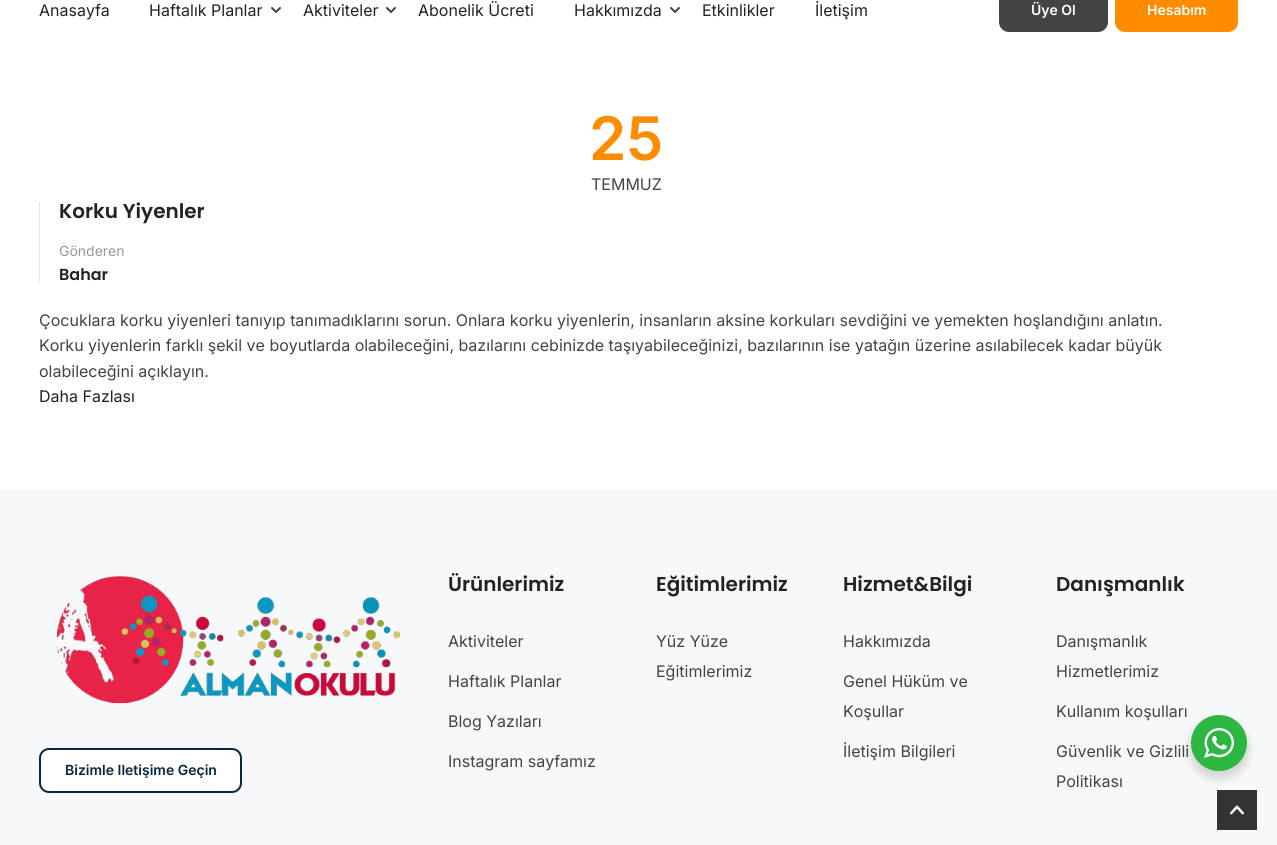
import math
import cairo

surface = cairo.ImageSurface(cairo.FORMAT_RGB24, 1277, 845)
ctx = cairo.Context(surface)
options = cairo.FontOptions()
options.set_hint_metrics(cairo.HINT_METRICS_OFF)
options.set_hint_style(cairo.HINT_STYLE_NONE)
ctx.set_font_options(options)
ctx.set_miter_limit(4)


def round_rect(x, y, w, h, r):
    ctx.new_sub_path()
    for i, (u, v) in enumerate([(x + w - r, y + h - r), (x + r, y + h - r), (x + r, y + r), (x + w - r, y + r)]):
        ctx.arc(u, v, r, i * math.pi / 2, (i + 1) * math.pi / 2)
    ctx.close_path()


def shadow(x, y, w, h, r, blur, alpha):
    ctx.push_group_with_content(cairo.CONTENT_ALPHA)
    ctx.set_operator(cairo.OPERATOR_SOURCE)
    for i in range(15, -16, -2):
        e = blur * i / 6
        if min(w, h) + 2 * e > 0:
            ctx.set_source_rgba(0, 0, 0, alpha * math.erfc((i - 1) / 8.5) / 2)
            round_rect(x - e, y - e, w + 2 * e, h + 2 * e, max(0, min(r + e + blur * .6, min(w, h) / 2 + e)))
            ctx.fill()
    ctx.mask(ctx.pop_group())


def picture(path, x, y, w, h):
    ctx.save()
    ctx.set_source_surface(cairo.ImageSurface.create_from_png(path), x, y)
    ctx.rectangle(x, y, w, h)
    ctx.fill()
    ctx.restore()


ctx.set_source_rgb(1, 1, 1)
ctx.paint()
ctx.select_font_face("Inter")
ctx.set_font_size(16)
ctx.set_source_rgb(0.129, 0.141, 0.153)
ctx.move_to(39, 16)
ctx.show_text("Anasayfa")
ctx.move_to(149, 16)
ctx.show_text("Haftalık Planlar")
picture("img1.png", 271, 7, 10, 6)
ctx.move_to(303, 16)
ctx.show_text("Aktiviteler")
picture("img1.png", 386, 7, 10, 6)
ctx.move_to(418, 16)
ctx.show_text("Abonelik Ücreti")
ctx.move_to(574, 16)
ctx.show_text("Hakkımızda")
picture("img1.png", 670, 7, 10, 6)
ctx.move_to(702, 16)
ctx.show_text("Etkinlikler")
ctx.move_to(815, 16)
ctx.show_text("İletişim")
ctx.set_source_rgb(0.267, 0.267, 0.267)
round_rect(999, -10, 109, 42, 10)
ctx.fill()
ctx.select_font_face("Inter SemiBold")
ctx.set_font_size(14)
ctx.set_source_rgb(1, 1, 1)
ctx.move_to(1031, 15)
ctx.show_text("Üye Ol")
ctx.set_source_rgb(1, 0.549, 0)
round_rect(1115, -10, 123, 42, 10)
ctx.fill()
ctx.set_source_rgb(1, 1, 1)
ctx.move_to(1147, 15)
ctx.show_text("Hesabım")
ctx.set_font_size(60)
ctx.set_source_rgb(1, 0.549, 0)
ctx.move_to(589, 160)
ctx.show_text("25")
ctx.select_font_face("Inter")
ctx.set_font_size(16)
ctx.set_source_rgb(0.267, 0.267, 0.267)
ctx.move_to(591, 190)
ctx.show_text("TEMMUZ")
ctx.set_source_rgb(0.894, 0.894, 0.894)
ctx.rectangle(39, 202, 1, 81)
ctx.fill()
ctx.select_font_face("Poppins SemiBold")
ctx.set_font_size(20)
ctx.set_source_rgb(0.129, 0.141, 0.153)
ctx.move_to(59, 218)
ctx.show_text("Korku Yiyenler")
ctx.select_font_face("Inter")
ctx.set_font_size(14)
ctx.set_source_rgb(0.6, 0.6, 0.6)
ctx.move_to(59, 256)
ctx.show_text("Gönderen")
ctx.select_font_face("Poppins SemiBold")
ctx.set_font_size(16)
ctx.set_source_rgb(0.129, 0.141, 0.153)
ctx.move_to(59, 280)
ctx.show_text("Bahar")
ctx.select_font_face("Inter")
ctx.set_source_rgb(0.267, 0.267, 0.267)
ctx.move_to(39, 326)
ctx.show_text("Çocuklara korku yiyenleri tanıyıp tanımadıklarını sorun. Onlara korku yiyenlerin, insanların aksine korkuları sevdiğini ve yemekten hoşlandığını anlatın.")
ctx.move_to(39, 351)
ctx.show_text("Korku yiyenlerin farklı şekil ve boyutlarda olabileceğini, bazılarını cebinizde taşıyabileceğinizi, bazılarının ise yatağın üzerine asılabilecek kadar büyük")
ctx.move_to(39, 377)
ctx.show_text("olabileceğini açıklayın.")
ctx.set_source_rgb(0.129, 0.141, 0.153)
ctx.move_to(39, 402)
ctx.show_text("Daha Fazlası")
ctx.set_source_rgb(0.961, 0.969, 0.973)
ctx.rectangle(0, 490, 1277, 355)
ctx.fill()
picture("img2.png", 56, 576, 345, 128)
ctx.set_source_rgb(1, 1, 1)
round_rect(40, 749, 201, 43, 9)
ctx.fill_preserve()
ctx.set_source_rgb(0.031, 0.149, 0.271)
ctx.stroke()
ctx.select_font_face("Inter SemiBold")
ctx.set_font_size(14)
ctx.move_to(65, 775)
ctx.show_text("Bizimle Iletişime Geçin")
ctx.select_font_face("Poppins SemiBold")
ctx.set_font_size(20)
ctx.set_source_rgb(0.129, 0.141, 0.153)
ctx.move_to(448, 591)
ctx.show_text("Ürünlerimiz")
ctx.select_font_face("Inter")
ctx.set_font_size(16)
ctx.set_source_rgb(0.267, 0.267, 0.267)
ctx.move_to(448, 647)
ctx.show_text("Aktiviteler")
ctx.move_to(448, 687)
ctx.show_text("Haftalık Planlar")
ctx.move_to(448, 727)
ctx.show_text("Blog Yazıları")
ctx.move_to(448, 767)
ctx.show_text("Instagram sayfamız")
ctx.select_font_face("Poppins SemiBold")
ctx.set_font_size(20)
ctx.set_source_rgb(0.129, 0.141, 0.153)
ctx.move_to(656, 591)
ctx.show_text("Eğitimlerimiz")
ctx.select_font_face("Inter")
ctx.set_font_size(16)
ctx.set_source_rgb(0.267, 0.267, 0.267)
ctx.move_to(656, 647)
ctx.show_text("Yüz Yüze")
ctx.move_to(656, 677)
ctx.show_text("Eğitimlerimiz")
ctx.select_font_face("Poppins SemiBold")
ctx.set_font_size(20)
ctx.set_source_rgb(0.129, 0.141, 0.153)
ctx.move_to(843, 591)
ctx.show_text("Hizmet&Bilgi")
ctx.select_font_face("Inter")
ctx.set_font_size(16)
ctx.set_source_rgb(0.267, 0.267, 0.267)
ctx.move_to(843, 647)
ctx.show_text("Hakkımızda")
ctx.move_to(843, 687)
ctx.show_text("Genel Hüküm ve")
ctx.move_to(843, 717)
ctx.show_text("Koşullar")
ctx.move_to(843, 757)
ctx.show_text("İletişim Bilgileri")
ctx.select_font_face("Poppins SemiBold")
ctx.set_font_size(20)
ctx.set_source_rgb(0.129, 0.141, 0.153)
ctx.move_to(1056, 591)
ctx.show_text("Danışmanlık")
ctx.select_font_face("Inter")
ctx.set_font_size(16)
ctx.set_source_rgb(0.267, 0.267, 0.267)
ctx.move_to(1056, 647)
ctx.show_text("Danışmanlık")
ctx.move_to(1056, 677)
ctx.show_text("Hizmetlerimiz")
ctx.move_to(1056, 717)
ctx.show_text("Kullanım koşulları")
ctx.move_to(1056, 757)
ctx.show_text("Güvenlik ve Gizlili")
ctx.move_to(1056, 787)
ctx.show_text("Politikası")
ctx.set_source_rgb(0.2, 0.2, 0.2)
ctx.rectangle(1217, 790, 40, 40)
ctx.fill()
picture("img3.png", 1230, 805, 14, 10)
ctx.set_source_rgb(0, 0, 0)
shadow(1189, 719, 60, 60, 30, 4, 0.14)
ctx.set_source_rgb(0.176, 0.718, 0.259)
ctx.arc(1219, 743, 28, 0, 2 * math.pi)
ctx.fill()
picture("img4.png", 1204, 728, 30, 30)
surface.write_to_png("page.png")
